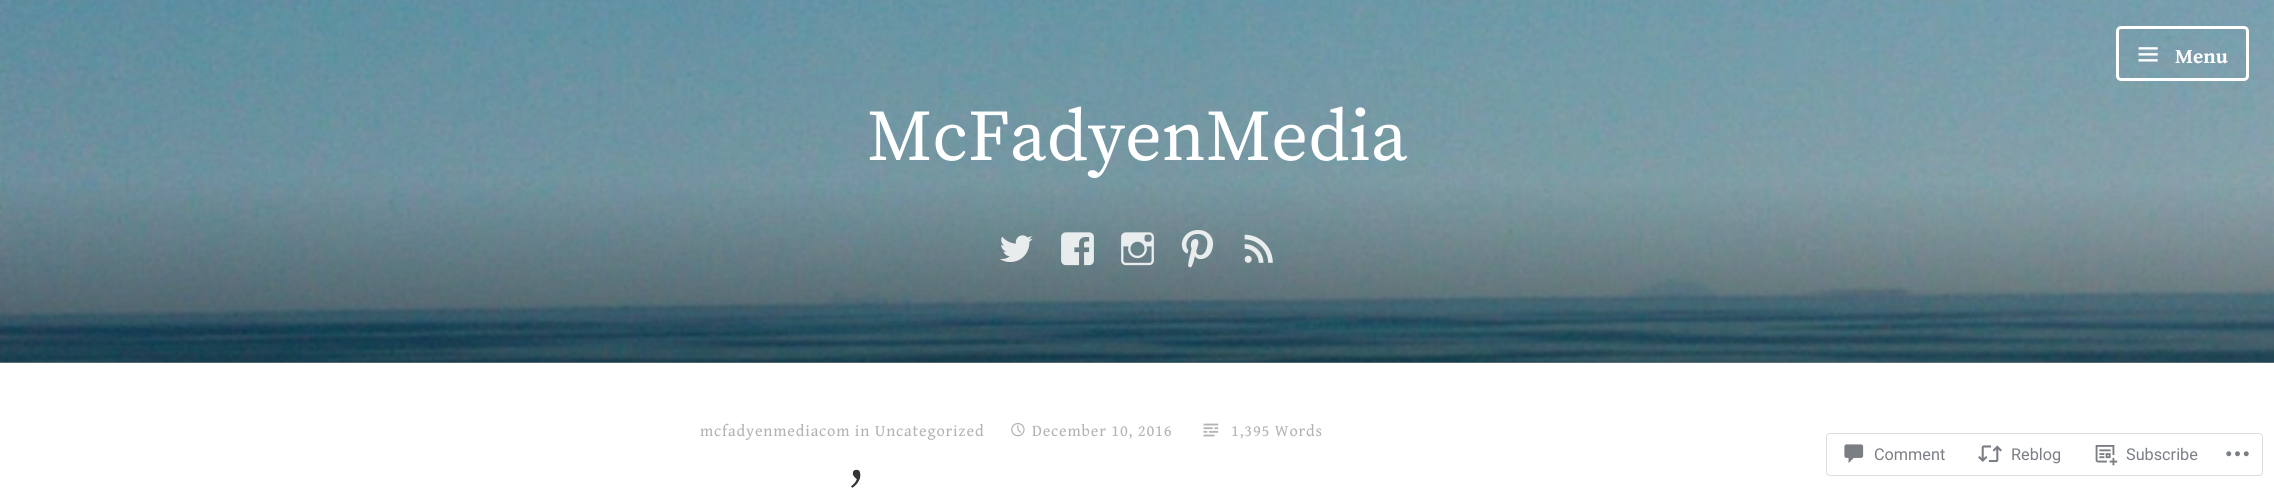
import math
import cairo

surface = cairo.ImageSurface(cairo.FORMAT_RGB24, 2274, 488)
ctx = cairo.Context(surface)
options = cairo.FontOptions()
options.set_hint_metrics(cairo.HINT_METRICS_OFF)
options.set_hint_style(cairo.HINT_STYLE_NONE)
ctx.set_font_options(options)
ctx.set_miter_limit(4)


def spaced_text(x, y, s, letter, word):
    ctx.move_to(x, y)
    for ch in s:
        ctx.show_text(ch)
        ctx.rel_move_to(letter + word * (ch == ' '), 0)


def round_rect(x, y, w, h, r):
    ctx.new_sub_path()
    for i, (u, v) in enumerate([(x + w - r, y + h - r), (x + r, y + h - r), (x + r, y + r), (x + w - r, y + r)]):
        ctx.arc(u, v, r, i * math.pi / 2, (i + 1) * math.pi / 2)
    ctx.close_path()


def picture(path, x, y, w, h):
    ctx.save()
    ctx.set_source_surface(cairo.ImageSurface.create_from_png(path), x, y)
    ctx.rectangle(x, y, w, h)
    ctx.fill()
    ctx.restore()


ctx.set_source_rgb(1, 1, 1)
ctx.paint()
picture("img1.png", 0, 0, 2274, 363)
gradient = cairo.LinearGradient(1138, 0, 1138, 363)
gradient.add_color_stop_rgba(0.5, 0, 0, 0, 0.15)
gradient.add_color_stop_rgba(1, 0, 0, 0, 0.45)
ctx.set_source(gradient)
ctx.rectangle(0, 0, 2274, 363)
ctx.fill()
round_rect(2117.5, 27.5, 130, 52, 3.5)
ctx.set_source_rgb(1, 1, 1)
ctx.set_line_width(3)
ctx.stroke()
picture("img2.png", 2138, 47, 20, 15)
ctx.select_font_face("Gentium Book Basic", cairo.FONT_SLANT_NORMAL, cairo.FONT_WEIGHT_BOLD)
ctx.set_font_size(21)
ctx.move_to(2175, 63)
ctx.show_text("Menu")
ctx.select_font_face("Source Serif Pro")
ctx.set_font_size(72.5)
ctx.move_to(867, 160)
ctx.show_text("McFadyenMedia")
picture("img3.png", 1000, 235, 33, 27)
picture("img4.png", 1061, 232, 33, 34)
picture("img5.png", 1121, 232, 33, 34)
picture("img6.png", 1181, 230, 32, 38)
picture("img7.png", 1244, 234, 29, 29)
ctx.select_font_face("Gentium Book Basic")
ctx.set_font_size(16.25)
ctx.set_source_rgb(0.702, 0.702, 0.694)
spaced_text(700, 436, "mcfadyenmediacom in Uncategorized", 0.8, 0)
picture("img8.png", 1011, 423, 14, 14)
spaced_text(1032, 436, "December 10, 2016", 0.8, 0)
picture("img9.png", 1203, 423, 16, 14)
spaced_text(1231, 436, "1,395 Words", 0.8, 0)
ctx.select_font_face("Source Serif Pro")
ctx.set_font_size(59)
ctx.set_source_rgb(0.2, 0.2, 0.196)
spaced_text(850, 514, "’", -1, 0)
round_rect(1826.5, 433.5, 436, 42, 3.5)
ctx.set_source_rgb(0.867, 0.867, 0.875)
ctx.set_line_width(1)
ctx.stroke()
picture("img10.png", 1844, 444, 20, 19)
ctx.select_font_face("Roboto")
ctx.set_font_size(16.25)
ctx.set_source_rgb(0.482, 0.498, 0.522)
ctx.move_to(1874, 460)
ctx.show_text("Comment")
picture("img11.png", 1978, 445, 24, 18)
ctx.move_to(2011, 460)
ctx.show_text("Reblog")
picture("img12.png", 2095, 445, 23, 21)
ctx.move_to(2126, 460)
ctx.show_text("Subscribe")
picture("img13.png", 2226, 451, 23, 6)
surface.write_to_png("page.png")
